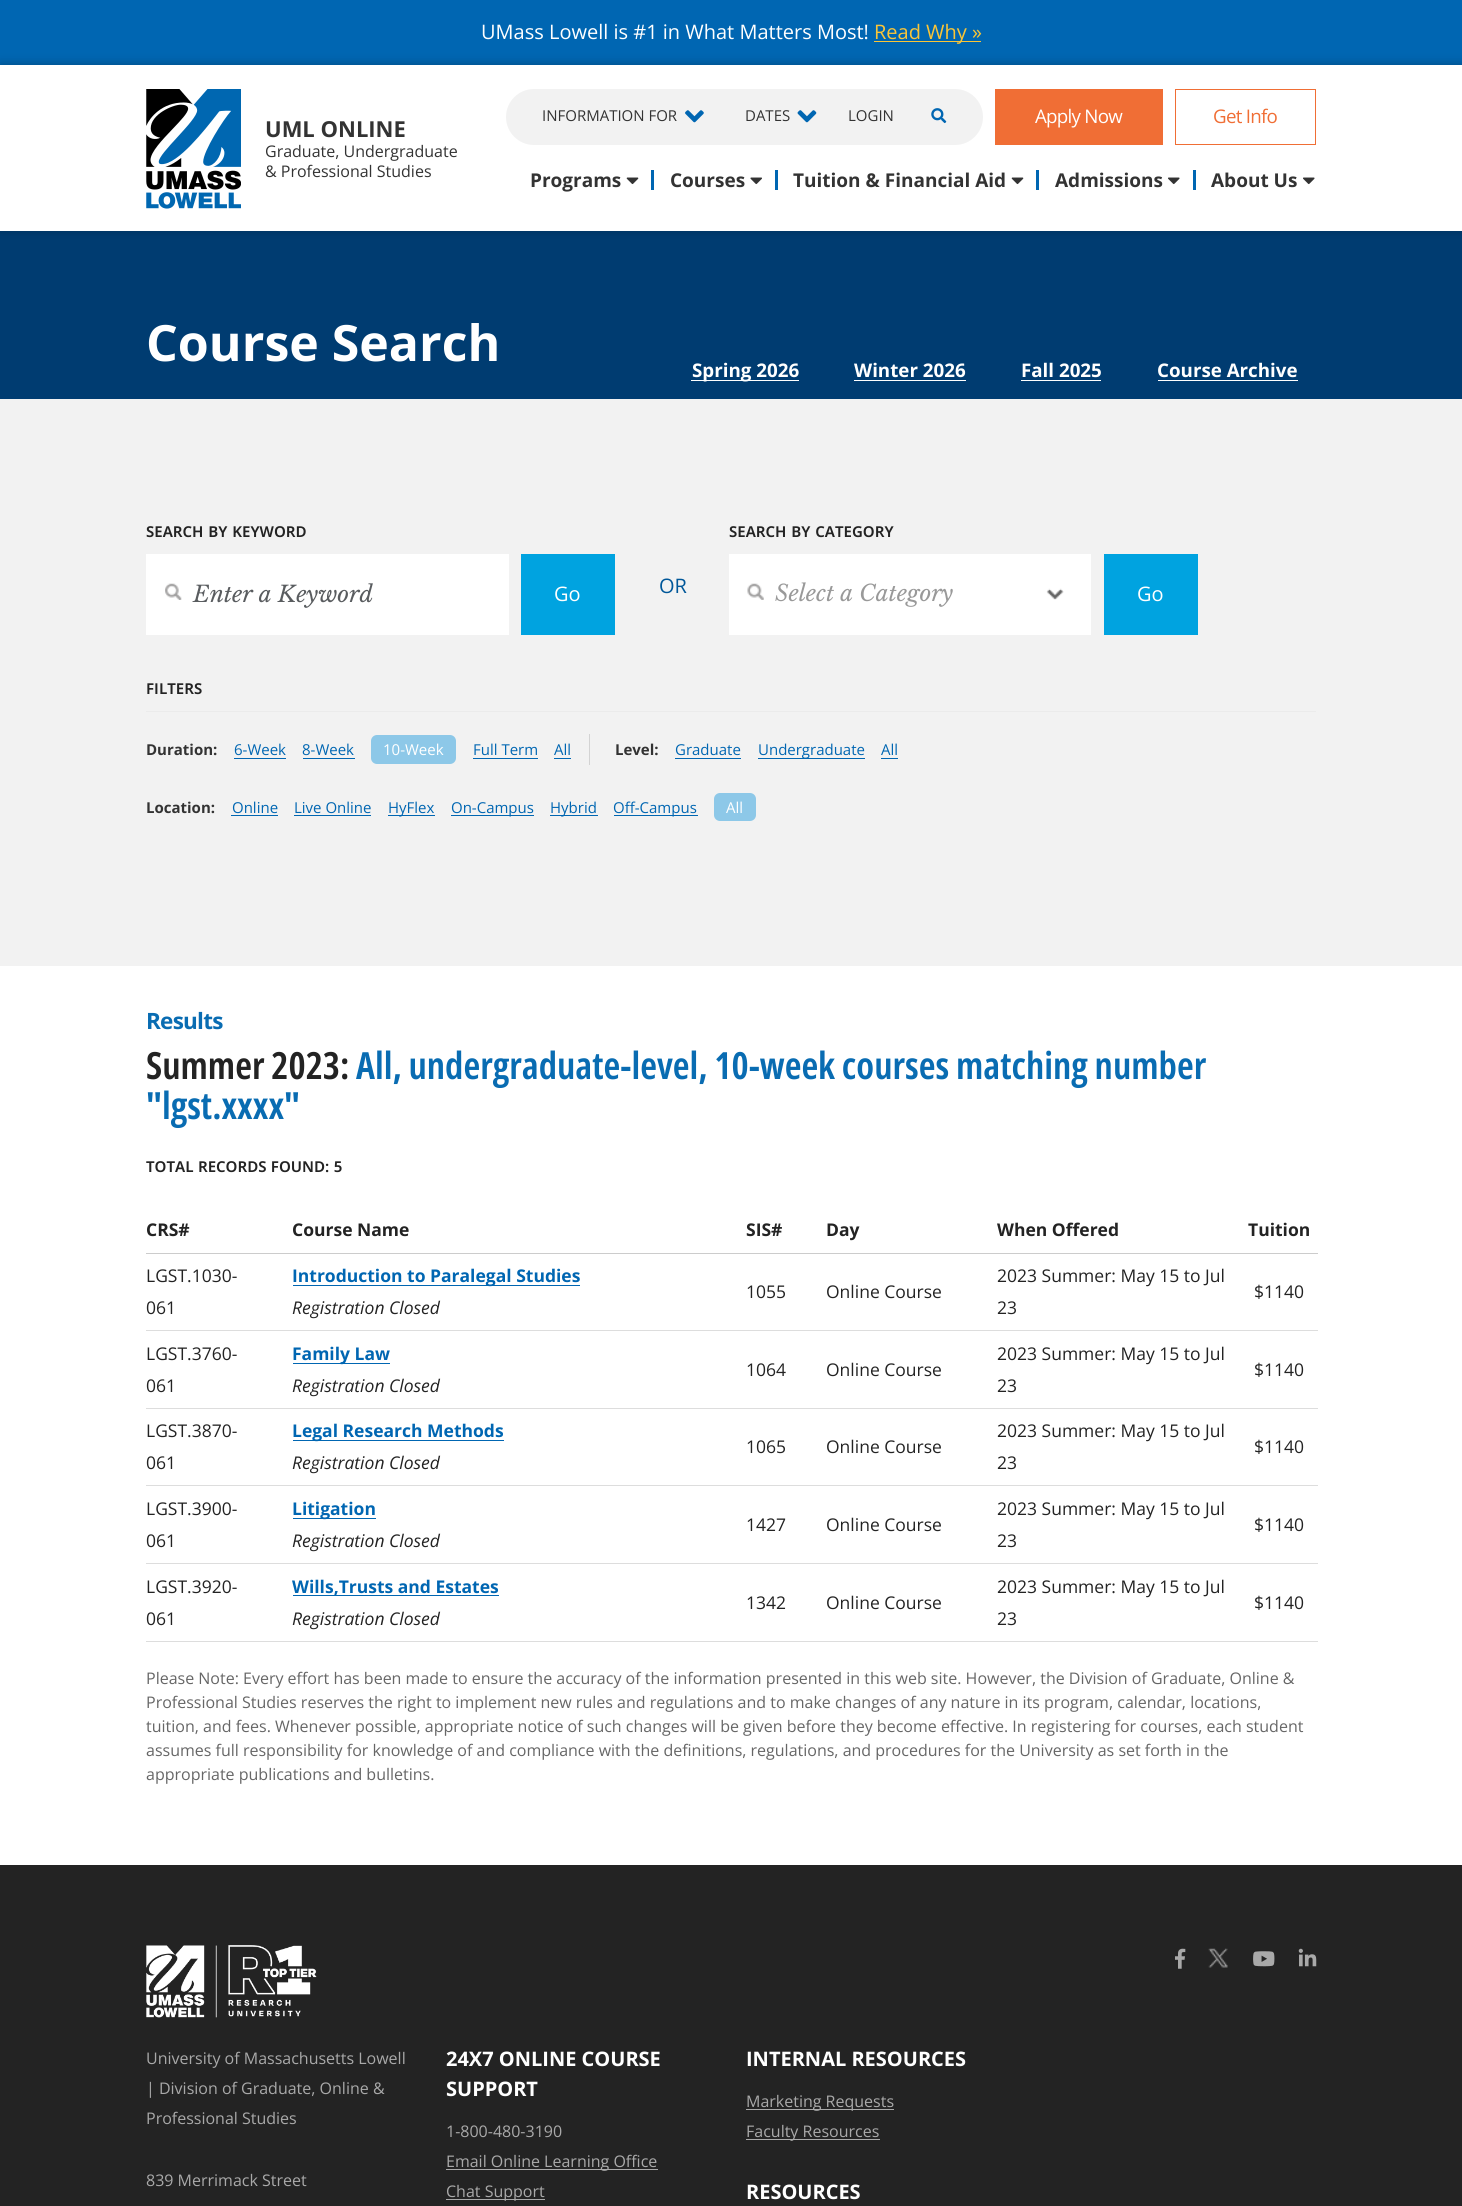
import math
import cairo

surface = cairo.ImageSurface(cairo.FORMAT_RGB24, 1462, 2206)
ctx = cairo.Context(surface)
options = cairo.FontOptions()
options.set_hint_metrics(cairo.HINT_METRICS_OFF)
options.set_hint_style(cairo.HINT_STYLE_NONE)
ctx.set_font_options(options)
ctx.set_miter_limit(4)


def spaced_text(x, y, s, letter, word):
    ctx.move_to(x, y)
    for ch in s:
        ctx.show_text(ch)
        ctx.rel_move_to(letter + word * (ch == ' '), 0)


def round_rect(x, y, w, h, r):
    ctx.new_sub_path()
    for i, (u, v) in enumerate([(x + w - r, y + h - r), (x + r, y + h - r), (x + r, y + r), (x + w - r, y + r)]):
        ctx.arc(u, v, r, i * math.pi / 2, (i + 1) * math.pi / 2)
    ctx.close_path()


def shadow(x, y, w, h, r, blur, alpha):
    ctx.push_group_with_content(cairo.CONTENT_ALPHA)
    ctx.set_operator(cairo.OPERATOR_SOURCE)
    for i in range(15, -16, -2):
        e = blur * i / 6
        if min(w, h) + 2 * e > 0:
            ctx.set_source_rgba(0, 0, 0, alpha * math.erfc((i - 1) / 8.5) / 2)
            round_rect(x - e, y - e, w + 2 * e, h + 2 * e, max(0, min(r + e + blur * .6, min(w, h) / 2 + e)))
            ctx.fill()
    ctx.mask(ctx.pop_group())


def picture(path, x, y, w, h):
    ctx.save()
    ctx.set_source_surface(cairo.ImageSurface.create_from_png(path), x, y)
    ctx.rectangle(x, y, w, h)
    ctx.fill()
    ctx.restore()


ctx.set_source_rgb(1, 1, 1)
ctx.paint()
ctx.set_source_rgb(0, 0.4, 0.698)
ctx.rectangle(0, 0, 1462, 65)
ctx.fill()
ctx.select_font_face("Open Sans")
ctx.set_font_size(20)
ctx.set_source_rgb(1, 1, 1)
ctx.move_to(481, 39)
ctx.show_text("UMass Lowell is #1 in What Matters Most!")
ctx.set_source_rgb(0.98, 0.773, 0.216)
ctx.rectangle(874, 41, 107, 1)
ctx.fill()
ctx.move_to(874, 39)
ctx.show_text("Read Why »")
ctx.set_source_rgb(0, 0.235, 0.443)
ctx.rectangle(0, 231, 1462, 168)
ctx.fill()
ctx.set_source_rgb(0, 0, 0)
shadow(0, 64, 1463, 166, 0, 5, 0.25)
ctx.set_source_rgb(1, 1, 1)
ctx.rectangle(0, 65, 1462, 166)
ctx.fill()
picture("img1.png", 146, 89, 95, 120)
ctx.select_font_face("Open Sans", cairo.FONT_SLANT_NORMAL, cairo.FONT_WEIGHT_BOLD)
ctx.set_font_size(22)
ctx.set_source_rgb(0.2, 0.2, 0.2)
ctx.move_to(265, 137)
ctx.show_text("UML ONLINE")
ctx.select_font_face("Open Sans")
ctx.set_font_size(16)
ctx.move_to(265, 157)
ctx.show_text("Graduate, Undergraduate")
ctx.move_to(265, 177)
ctx.show_text("& Professional Studies")
ctx.set_source_rgb(0.949, 0.949, 0.949)
round_rect(506, 89, 477, 56, 28)
ctx.fill()
ctx.set_font_size(15)
ctx.set_source_rgb(0.2, 0.2, 0.2)
ctx.move_to(542, 121)
ctx.show_text("INFORMATION FOR")
picture("img2.png", 685, 110, 19, 13)
ctx.move_to(745, 121)
ctx.show_text("DATES")
picture("img3.png", 797, 110, 20, 13)
ctx.move_to(848, 121)
ctx.show_text("LOGIN")
picture("img4.png", 931, 108, 16, 16)
ctx.set_source_rgb(0.941, 0.431, 0.208)
ctx.rectangle(995, 89, 168, 56)
ctx.fill()
ctx.set_font_size(18.75)
ctx.set_source_rgb(1, 1, 1)
spaced_text(1035, 123, "Apply Now", -0.75, 0)
ctx.rectangle(1175.5, 89.5, 140, 55)
ctx.set_source_rgb(0.941, 0.431, 0.208)
ctx.set_line_width(1)
ctx.stroke()
spaced_text(1213, 123, "Get Info", -0.75, 0)
ctx.set_source_rgb(0, 0.4, 0.698)
ctx.rectangle(651, 170, 3, 20)
ctx.fill()
ctx.select_font_face("Open Sans", cairo.FONT_SLANT_NORMAL, cairo.FONT_WEIGHT_BOLD)
ctx.set_font_size(19)
ctx.set_source_rgb(0.2, 0.2, 0.2)
ctx.move_to(530, 187)
ctx.show_text("Programs")
picture("img5.png", 626, 177, 13, 8)
ctx.set_source_rgb(0, 0.4, 0.698)
ctx.rectangle(775, 170, 3, 20)
ctx.fill()
ctx.set_source_rgb(0.2, 0.2, 0.2)
ctx.move_to(670, 187)
ctx.show_text("Courses")
picture("img6.png", 750, 177, 12, 8)
ctx.set_source_rgb(0, 0.4, 0.698)
ctx.rectangle(1036, 170, 3, 20)
ctx.fill()
ctx.set_source_rgb(0.2, 0.2, 0.2)
ctx.move_to(793, 187)
ctx.show_text("Tuition & Financial Aid")
picture("img5.png", 1011, 177, 13, 8)
ctx.set_source_rgb(0, 0.4, 0.698)
ctx.rectangle(1193, 170, 3, 20)
ctx.fill()
ctx.set_source_rgb(0.2, 0.2, 0.2)
ctx.move_to(1055, 187)
ctx.show_text("Admissions")
picture("img7.png", 1168, 177, 12, 8)
ctx.move_to(1211, 187)
ctx.show_text("About Us")
picture("img7.png", 1303, 177, 12, 8)
ctx.set_font_size(50)
ctx.set_source_rgb(1, 1, 1)
ctx.move_to(146, 361)
ctx.show_text("Course Search")
ctx.rectangle(691, 380, 108, 1)
ctx.fill()
ctx.set_font_size(18.75)
ctx.move_to(692, 377)
ctx.show_text("Spring 2026")
ctx.move_to(854, 377)
ctx.show_text("Winter 2026")
ctx.rectangle(854, 380, 112, 1)
ctx.fill()
ctx.move_to(1021, 377)
ctx.show_text("Fall 2025")
ctx.rectangle(1021, 380, 80, 1)
ctx.fill()
ctx.move_to(1157, 377)
ctx.show_text("Course Archive")
ctx.rectangle(1158, 380, 140, 1)
ctx.fill()
ctx.set_source_rgb(0.949, 0.949, 0.949)
ctx.rectangle(0, 399, 1462, 567)
ctx.fill()
ctx.select_font_face("Open Sans SemiBold")
ctx.set_font_size(15)
ctx.set_source_rgb(0.137, 0.137, 0.137)
spaced_text(146, 537, "SEARCH BY KEYWORD", 0, 1)
ctx.set_source_rgb(1, 1, 1)
ctx.rectangle(146, 554, 363, 81)
ctx.fill()
picture("img8.png", 165, 583, 17, 17)
ctx.select_font_face("Libre Baskerville", cairo.FONT_SLANT_ITALIC)
ctx.set_font_size(22.5)
ctx.set_source_rgb(0.349, 0.361, 0.373)
ctx.move_to(193, 602)
ctx.show_text("Enter a Keyword")
ctx.set_source_rgb(0, 0.639, 0.878)
ctx.rectangle(521, 554, 94, 81)
ctx.fill()
ctx.select_font_face("Open Sans")
ctx.set_font_size(20)
ctx.set_source_rgb(1, 1, 1)
ctx.move_to(554, 601)
ctx.show_text("Go")
ctx.set_source_rgb(0, 0.341, 0.6)
ctx.move_to(659, 593)
ctx.show_text("OR")
ctx.select_font_face("Open Sans SemiBold")
ctx.set_font_size(15)
ctx.set_source_rgb(0.137, 0.137, 0.137)
spaced_text(729, 537, "SEARCH BY CATEGORY", 0, 1)
ctx.set_source_rgb(1, 1, 1)
ctx.rectangle(729, 554, 362, 81)
ctx.fill()
picture("img9.png", 1046, 588, 18, 12)
picture("img10.png", 747, 583, 17, 17)
ctx.select_font_face("Libre Baskerville", cairo.FONT_SLANT_ITALIC)
ctx.set_font_size(22.5)
ctx.set_source_rgb(0.6, 0.6, 0.6)
ctx.move_to(775, 601)
ctx.show_text("Select a Category")
ctx.set_source_rgb(0, 0.639, 0.878)
ctx.rectangle(1104, 554, 94, 81)
ctx.fill()
ctx.select_font_face("Open Sans")
ctx.set_font_size(20)
ctx.set_source_rgb(1, 1, 1)
ctx.move_to(1137, 601)
ctx.show_text("Go")
ctx.select_font_face("Open Sans SemiBold")
ctx.set_font_size(15)
ctx.set_source_rgb(0.137, 0.137, 0.137)
ctx.move_to(146, 694)
ctx.show_text("FILTERS")
ctx.set_source_rgb(0.918, 0.918, 0.918)
ctx.rectangle(146, 711, 1170, 1)
ctx.fill()
ctx.select_font_face("Open Sans", cairo.FONT_SLANT_NORMAL, cairo.FONT_WEIGHT_BOLD)
ctx.set_source_rgb(0.2, 0.2, 0.2)
ctx.move_to(146, 755)
ctx.show_text("Duration:")
ctx.select_font_face("Open Sans")
ctx.set_source_rgb(0, 0.4, 0.698)
ctx.move_to(234, 755)
ctx.show_text("6-Week")
ctx.rectangle(234, 758, 52, 1)
ctx.fill()
ctx.move_to(302, 755)
ctx.show_text("8-Week")
ctx.rectangle(303, 758, 52, 1)
ctx.fill()
ctx.set_source_rgb(0.553, 0.784, 0.91)
round_rect(371, 735, 85, 29, 6)
ctx.fill()
ctx.set_source_rgb(1, 1, 1)
ctx.move_to(383, 755)
ctx.show_text("10-Week")
ctx.set_source_rgb(0, 0.4, 0.698)
ctx.move_to(473, 755)
ctx.show_text("Full Term")
ctx.rectangle(473, 758, 65, 1)
ctx.fill()
ctx.move_to(554, 755)
ctx.show_text("All")
ctx.rectangle(554, 758, 17, 1)
ctx.fill()
ctx.set_source_rgb(0.827, 0.827, 0.827)
ctx.rectangle(589, 734, 1, 31)
ctx.fill()
ctx.select_font_face("Open Sans", cairo.FONT_SLANT_NORMAL, cairo.FONT_WEIGHT_BOLD)
ctx.set_source_rgb(0.2, 0.2, 0.2)
ctx.move_to(615, 755)
ctx.show_text("Level:")
ctx.select_font_face("Open Sans")
ctx.set_source_rgb(0, 0.4, 0.698)
ctx.move_to(675, 755)
ctx.show_text("Graduate")
ctx.rectangle(675, 758, 66, 1)
ctx.fill()
ctx.rectangle(758, 758, 107, 1)
ctx.fill()
ctx.move_to(758, 755)
ctx.show_text("Undergraduate")
ctx.move_to(881, 755)
ctx.show_text("All")
ctx.rectangle(881, 758, 17, 1)
ctx.fill()
ctx.select_font_face("Open Sans", cairo.FONT_SLANT_NORMAL, cairo.FONT_WEIGHT_BOLD)
ctx.set_source_rgb(0.2, 0.2, 0.2)
ctx.move_to(146, 813)
ctx.show_text("Location:")
ctx.select_font_face("Open Sans")
ctx.set_source_rgb(0, 0.4, 0.698)
ctx.move_to(232, 813)
ctx.show_text("Online")
ctx.rectangle(231, 815, 47, 1)
ctx.fill()
ctx.move_to(294, 813)
ctx.show_text("Live Online")
ctx.rectangle(294, 815, 77, 1)
ctx.fill()
ctx.rectangle(388, 815, 47, 1)
ctx.fill()
ctx.move_to(388, 813)
ctx.show_text("HyFlex")
ctx.rectangle(451, 815, 83, 1)
ctx.fill()
ctx.move_to(451, 813)
ctx.show_text("On-Campus")
ctx.rectangle(550, 815, 48, 1)
ctx.fill()
ctx.move_to(550, 813)
ctx.show_text("Hybrid")
ctx.rectangle(614, 815, 84, 1)
ctx.fill()
ctx.move_to(613, 813)
ctx.show_text("Off-Campus")
ctx.set_source_rgb(0.553, 0.784, 0.91)
round_rect(714, 793, 42, 28, 6)
ctx.fill()
ctx.set_source_rgb(1, 1, 1)
ctx.move_to(726, 813)
ctx.show_text("All")
ctx.select_font_face("Open Sans", cairo.FONT_SLANT_NORMAL, cairo.FONT_WEIGHT_BOLD)
ctx.set_font_size(22.5)
ctx.set_source_rgb(0.039, 0.424, 0.698)
spaced_text(146, 1029, "Results", -0.75, 0)
ctx.select_font_face("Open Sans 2 SemiBold")
ctx.set_font_size(37.5)
ctx.set_source_rgb(0.137, 0.137, 0.137)
ctx.move_to(146, 1079)
ctx.show_text("Summer 2023:")
ctx.set_source_rgb(0.039, 0.424, 0.698)
ctx.move_to(356, 1079)
ctx.show_text("All, undergraduate-level, 10-week courses matching number")
ctx.move_to(146, 1119)
ctx.show_text("\"lgst.xxxx\"")
ctx.select_font_face("Open Sans SemiBold")
ctx.set_font_size(15)
ctx.set_source_rgb(0.137, 0.137, 0.137)
spaced_text(146, 1172, "TOTAL RECORDS FOUND: 5", 0, 0.5)
ctx.set_source_rgb(0.8, 0.8, 0.8)
ctx.rectangle(146, 1253, 1172, 1)
ctx.fill()
ctx.select_font_face("Open Sans", cairo.FONT_SLANT_NORMAL, cairo.FONT_WEIGHT_BOLD)
ctx.set_font_size(17.5)
ctx.set_source_rgb(0.137, 0.137, 0.137)
ctx.move_to(146, 1236)
ctx.show_text("CRS#")
ctx.move_to(292, 1236)
ctx.show_text("Course Name")
ctx.move_to(746, 1236)
ctx.show_text("SIS#")
ctx.move_to(826, 1236)
ctx.show_text("Day")
ctx.move_to(997, 1236)
ctx.show_text("When Offered")
ctx.move_to(1248, 1236)
ctx.show_text("Tuition")
ctx.set_source_rgb(0.867, 0.867, 0.867)
ctx.rectangle(146, 1330, 1172, 1)
ctx.fill()
ctx.select_font_face("Open Sans")
ctx.set_source_rgb(0.137, 0.137, 0.137)
ctx.move_to(146, 1282)
ctx.show_text("LGST.1030-")
ctx.move_to(146, 1314)
ctx.show_text("061")
ctx.set_source_rgb(0, 0.4, 0.698)
ctx.rectangle(293, 1285, 287, 1)
ctx.fill()
ctx.select_font_face("Open Sans", cairo.FONT_SLANT_NORMAL, cairo.FONT_WEIGHT_BOLD)
ctx.move_to(292, 1282)
ctx.show_text("Introduction to Paralegal Studies")
ctx.select_font_face("Open Sans", cairo.FONT_SLANT_ITALIC)
ctx.set_source_rgb(0.137, 0.137, 0.137)
ctx.move_to(292, 1314)
ctx.show_text("Registration Closed")
ctx.select_font_face("Open Sans")
ctx.move_to(746, 1298)
ctx.show_text("1055")
ctx.move_to(826, 1298)
ctx.show_text("Online Course")
ctx.move_to(997, 1282)
ctx.show_text("2023 Summer: May 15 to Jul")
ctx.move_to(997, 1314)
ctx.show_text("23")
ctx.move_to(1254, 1298)
ctx.show_text("$1140")
ctx.set_source_rgb(0.867, 0.867, 0.867)
ctx.rectangle(146, 1408, 1172, 1)
ctx.fill()
ctx.set_source_rgb(0.137, 0.137, 0.137)
ctx.move_to(146, 1360)
ctx.show_text("LGST.3760-")
ctx.move_to(146, 1392)
ctx.show_text("061")
ctx.set_source_rgb(0, 0.4, 0.698)
ctx.rectangle(293, 1363, 97, 1)
ctx.fill()
ctx.select_font_face("Open Sans", cairo.FONT_SLANT_NORMAL, cairo.FONT_WEIGHT_BOLD)
ctx.move_to(292, 1360)
ctx.show_text("Family Law")
ctx.select_font_face("Open Sans", cairo.FONT_SLANT_ITALIC)
ctx.set_source_rgb(0.137, 0.137, 0.137)
ctx.move_to(292, 1392)
ctx.show_text("Registration Closed")
ctx.select_font_face("Open Sans")
ctx.move_to(746, 1376)
ctx.show_text("1064")
ctx.move_to(826, 1376)
ctx.show_text("Online Course")
ctx.move_to(997, 1360)
ctx.show_text("2023 Summer: May 15 to Jul")
ctx.move_to(997, 1392)
ctx.show_text("23")
ctx.move_to(1254, 1376)
ctx.show_text("$1140")
ctx.set_source_rgb(0.867, 0.867, 0.867)
ctx.rectangle(146, 1485, 1172, 1)
ctx.fill()
ctx.set_source_rgb(0.137, 0.137, 0.137)
ctx.move_to(146, 1437)
ctx.show_text("LGST.3870-")
ctx.move_to(146, 1469)
ctx.show_text("061")
ctx.set_source_rgb(0, 0.4, 0.698)
ctx.rectangle(293, 1440, 211, 1)
ctx.fill()
ctx.select_font_face("Open Sans", cairo.FONT_SLANT_NORMAL, cairo.FONT_WEIGHT_BOLD)
ctx.move_to(292, 1437)
ctx.show_text("Legal Research Methods")
ctx.select_font_face("Open Sans", cairo.FONT_SLANT_ITALIC)
ctx.set_source_rgb(0.137, 0.137, 0.137)
ctx.move_to(292, 1469)
ctx.show_text("Registration Closed")
ctx.select_font_face("Open Sans")
ctx.move_to(746, 1453)
ctx.show_text("1065")
ctx.move_to(826, 1453)
ctx.show_text("Online Course")
ctx.move_to(997, 1437)
ctx.show_text("2023 Summer: May 15 to Jul")
ctx.move_to(997, 1469)
ctx.show_text("23")
ctx.move_to(1254, 1453)
ctx.show_text("$1140")
ctx.set_source_rgb(0.867, 0.867, 0.867)
ctx.rectangle(146, 1563, 1172, 1)
ctx.fill()
ctx.set_source_rgb(0.137, 0.137, 0.137)
ctx.move_to(146, 1515)
ctx.show_text("LGST.3900-")
ctx.move_to(146, 1547)
ctx.show_text("061")
ctx.set_source_rgb(0, 0.4, 0.698)
ctx.rectangle(293, 1518, 83, 1)
ctx.fill()
ctx.select_font_face("Open Sans", cairo.FONT_SLANT_NORMAL, cairo.FONT_WEIGHT_BOLD)
ctx.move_to(292, 1515)
ctx.show_text("Litigation")
ctx.select_font_face("Open Sans", cairo.FONT_SLANT_ITALIC)
ctx.set_source_rgb(0.137, 0.137, 0.137)
ctx.move_to(292, 1547)
ctx.show_text("Registration Closed")
ctx.select_font_face("Open Sans")
ctx.move_to(746, 1531)
ctx.show_text("1427")
ctx.move_to(826, 1531)
ctx.show_text("Online Course")
ctx.move_to(997, 1515)
ctx.show_text("2023 Summer: May 15 to Jul")
ctx.move_to(997, 1547)
ctx.show_text("23")
ctx.move_to(1254, 1531)
ctx.show_text("$1140")
ctx.set_source_rgb(0.867, 0.867, 0.867)
ctx.rectangle(146, 1641, 1172, 1)
ctx.fill()
ctx.set_source_rgb(0.137, 0.137, 0.137)
ctx.move_to(146, 1593)
ctx.show_text("LGST.3920-")
ctx.move_to(146, 1625)
ctx.show_text("061")
ctx.set_source_rgb(0, 0.4, 0.698)
ctx.rectangle(293, 1595, 206, 1)
ctx.fill()
ctx.select_font_face("Open Sans", cairo.FONT_SLANT_NORMAL, cairo.FONT_WEIGHT_BOLD)
ctx.move_to(292, 1593)
ctx.show_text("Wills,Trusts and Estates")
ctx.select_font_face("Open Sans", cairo.FONT_SLANT_ITALIC)
ctx.set_source_rgb(0.137, 0.137, 0.137)
ctx.move_to(292, 1625)
ctx.show_text("Registration Closed")
ctx.select_font_face("Open Sans")
ctx.move_to(746, 1609)
ctx.show_text("1342")
ctx.move_to(826, 1609)
ctx.show_text("Online Course")
ctx.move_to(997, 1593)
ctx.show_text("2023 Summer: May 15 to Jul")
ctx.move_to(997, 1625)
ctx.show_text("23")
ctx.move_to(1254, 1609)
ctx.show_text("$1140")
ctx.set_font_size(16)
ctx.set_source_rgb(0.4, 0.4, 0.4)
ctx.move_to(146, 1684)
ctx.show_text("Please Note: Every effort has been made to ensure the accuracy of the information presented in this web site. However, the Division of Graduate, Online &")
ctx.move_to(146, 1708)
ctx.show_text("Professional Studies reserves the right to implement new rules and regulations and to make changes of any nature in its program, calendar, locations,")
ctx.move_to(146, 1732)
ctx.show_text("tuition, and fees. Whenever possible, appropriate notice of such changes will be given before they become effective. In registering for courses, each student")
ctx.move_to(146, 1756)
ctx.show_text("assumes full responsibility for knowledge of and compliance with the definitions, regulations, and procedures for the University as set forth in the")
ctx.move_to(146, 1780)
ctx.show_text("appropriate publications and bulletins.")
ctx.set_source_rgb(0.137, 0.137, 0.137)
ctx.rectangle(0, 1865, 1462, 341)
ctx.fill()
picture("img11.png", 146, 1945, 171, 73)
picture("img12.png", 1175, 1948, 11, 21)
picture("img13.png", 1208, 1948, 20, 20)
picture("img14.png", 1253, 1951, 22, 16)
picture("img15.png", 1298, 1948, 19, 19)
ctx.set_source_rgb(0.663, 0.663, 0.663)
ctx.move_to(146, 2064)
ctx.show_text("University of Massachusetts Lowell")
ctx.move_to(146, 2094)
ctx.show_text("| Division of Graduate, Online &")
ctx.move_to(146, 2124)
ctx.show_text("Professional Studies")
ctx.move_to(146, 2186)
ctx.show_text("839 Merrimack Street")
ctx.select_font_face("Open Sans", cairo.FONT_SLANT_NORMAL, cairo.FONT_WEIGHT_BOLD)
ctx.set_font_size(20)
ctx.set_source_rgb(1, 1, 1)
ctx.move_to(446, 2066)
ctx.show_text("24X7 ONLINE COURSE")
ctx.move_to(446, 2096)
ctx.show_text("SUPPORT")
ctx.select_font_face("Open Sans")
ctx.set_font_size(16)
ctx.set_source_rgb(0.663, 0.663, 0.663)
ctx.move_to(446, 2137)
ctx.show_text("1-800-480-3190")
ctx.rectangle(446, 2169, 212, 1)
ctx.fill()
ctx.move_to(446, 2167)
ctx.show_text("Email Online Learning Office")
ctx.rectangle(446, 2199, 99, 1)
ctx.fill()
ctx.move_to(446, 2197)
ctx.show_text("Chat Support")
ctx.select_font_face("Open Sans", cairo.FONT_SLANT_NORMAL, cairo.FONT_WEIGHT_BOLD)
ctx.set_font_size(20)
ctx.set_source_rgb(1, 1, 1)
ctx.move_to(746, 2066)
ctx.show_text("INTERNAL RESOURCES")
ctx.set_source_rgb(0.663, 0.663, 0.663)
ctx.rectangle(746, 2109, 148, 1)
ctx.fill()
ctx.select_font_face("Open Sans")
ctx.set_font_size(16)
ctx.move_to(746, 2107)
ctx.show_text("Marketing Requests")
ctx.rectangle(746, 2139, 134, 1)
ctx.fill()
ctx.move_to(746, 2137)
ctx.show_text("Faculty Resources")
ctx.select_font_face("Open Sans", cairo.FONT_SLANT_NORMAL, cairo.FONT_WEIGHT_BOLD)
ctx.set_font_size(20)
ctx.set_source_rgb(1, 1, 1)
ctx.move_to(746, 2199)
ctx.show_text("RESOURCES")
surface.write_to_png("page.png")
